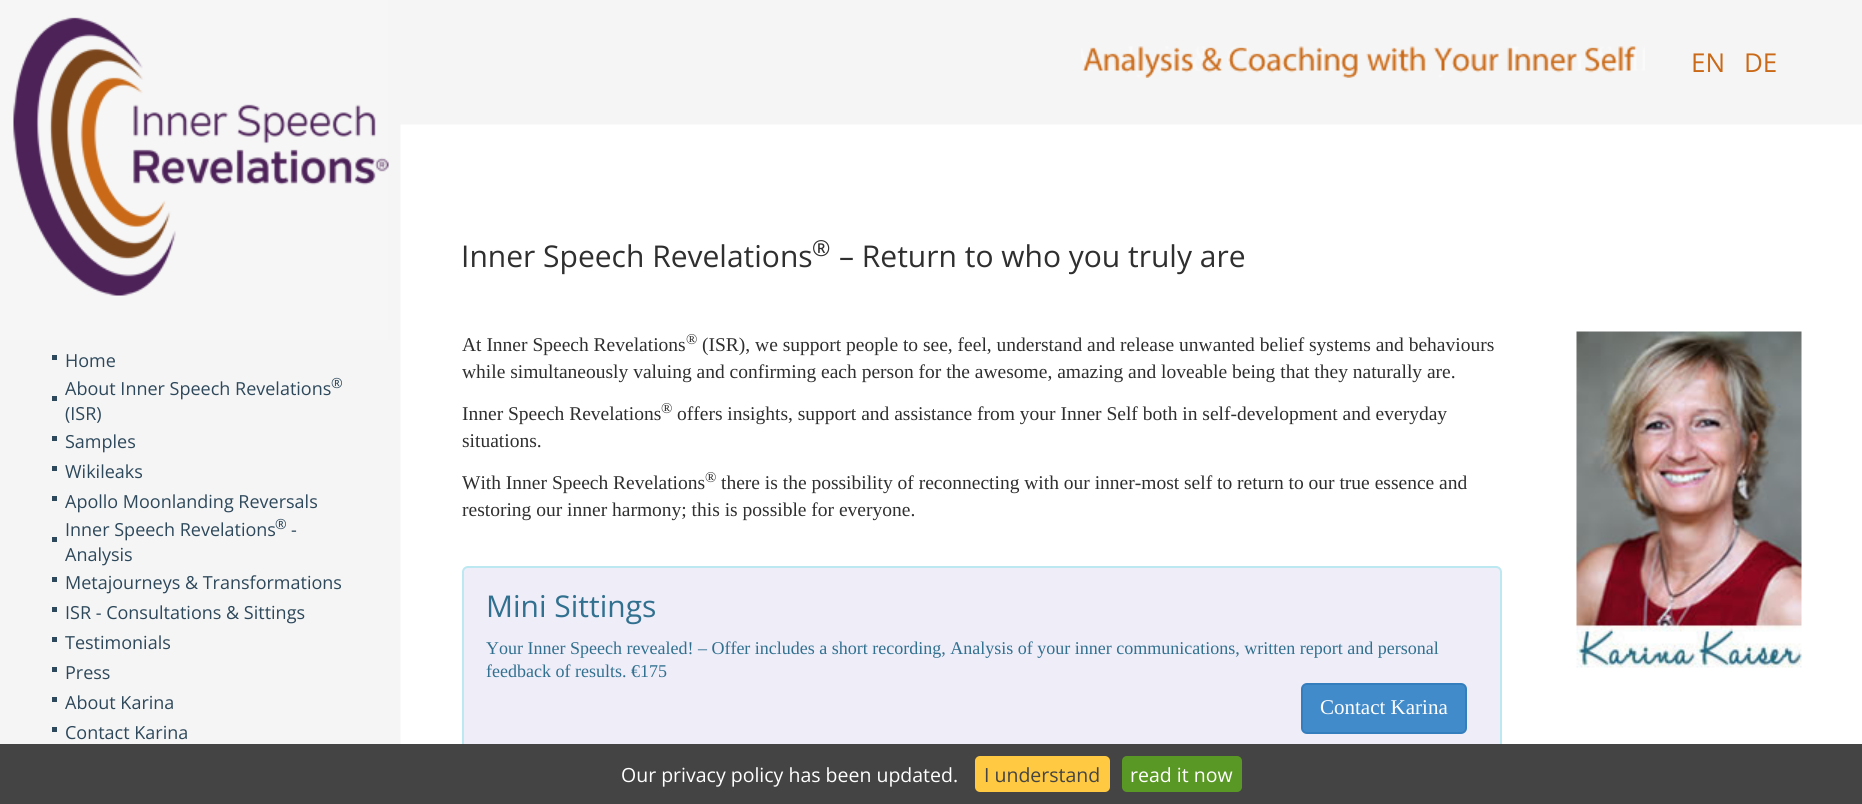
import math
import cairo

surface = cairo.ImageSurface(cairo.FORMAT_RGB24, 1862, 804)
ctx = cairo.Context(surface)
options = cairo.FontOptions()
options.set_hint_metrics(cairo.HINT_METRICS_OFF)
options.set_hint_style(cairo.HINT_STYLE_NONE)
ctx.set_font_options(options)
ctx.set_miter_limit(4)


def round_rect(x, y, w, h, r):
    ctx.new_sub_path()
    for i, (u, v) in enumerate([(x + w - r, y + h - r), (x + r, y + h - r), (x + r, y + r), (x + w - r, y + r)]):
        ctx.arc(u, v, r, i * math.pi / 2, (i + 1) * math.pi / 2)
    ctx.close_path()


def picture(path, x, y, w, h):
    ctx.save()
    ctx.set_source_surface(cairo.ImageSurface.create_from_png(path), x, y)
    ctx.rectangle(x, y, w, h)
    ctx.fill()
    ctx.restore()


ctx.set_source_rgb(1, 1, 1)
ctx.paint()
picture("img1.png", 0, 0, 1862, 744)
picture("img2.png", 1081, 46, 564, 32)
ctx.select_font_face("Open Sans")
ctx.set_font_size(26)
ctx.set_source_rgb(0.792, 0.416, 0.094)
ctx.move_to(1691, 72)
ctx.show_text("EN")
ctx.move_to(1744, 72)
ctx.show_text("DE")
ctx.set_source_rgb(0.176, 0.282, 0.357)
ctx.rectangle(52, 355, 5, 5)
ctx.fill()
ctx.set_font_size(18)
ctx.move_to(65, 367)
ctx.show_text("Home")
ctx.rectangle(52, 396, 5, 5)
ctx.fill()
ctx.move_to(65, 395)
ctx.show_text("About Inner Speech Revelations")
ctx.set_font_size(14)
ctx.move_to(331, 388)
ctx.show_text("®")
ctx.set_font_size(18)
ctx.move_to(65, 420)
ctx.show_text("(ISR)")
ctx.rectangle(52, 436, 5, 5)
ctx.fill()
ctx.move_to(65, 448)
ctx.show_text("Samples")
ctx.rectangle(52, 466, 5, 5)
ctx.fill()
ctx.move_to(65, 478)
ctx.show_text("Wikileaks")
ctx.rectangle(52, 496, 5, 5)
ctx.fill()
ctx.move_to(65, 508)
ctx.show_text("Apollo Moonlanding Reversals")
ctx.rectangle(52, 537, 5, 5)
ctx.fill()
ctx.move_to(65, 536)
ctx.show_text("Inner Speech Revelations")
ctx.set_font_size(14)
ctx.move_to(275, 529)
ctx.show_text("®")
ctx.set_font_size(18)
ctx.move_to(291, 536)
ctx.show_text("-")
ctx.move_to(65, 561)
ctx.show_text("Analysis")
ctx.rectangle(52, 577, 5, 5)
ctx.fill()
ctx.move_to(65, 589)
ctx.show_text("Metajourneys & Transformations")
ctx.rectangle(52, 607, 5, 5)
ctx.fill()
ctx.move_to(65, 619)
ctx.show_text("ISR - Consultations & Sittings")
ctx.rectangle(52, 637, 5, 5)
ctx.fill()
ctx.move_to(65, 649)
ctx.show_text("Testimonials")
ctx.rectangle(52, 667, 5, 5)
ctx.fill()
ctx.move_to(65, 679)
ctx.show_text("Press")
ctx.rectangle(52, 697, 5, 5)
ctx.fill()
ctx.move_to(65, 709)
ctx.show_text("About Karina")
ctx.rectangle(52, 727, 5, 5)
ctx.fill()
ctx.move_to(65, 739)
ctx.show_text("Contact Karina")
ctx.set_font_size(30)
ctx.set_source_rgb(0.184, 0.184, 0.184)
ctx.move_to(461, 267)
ctx.show_text("Inner Speech Revelations")
ctx.set_font_size(22)
ctx.move_to(812, 256)
ctx.show_text("®")
ctx.set_font_size(30)
ctx.move_to(839, 267)
ctx.show_text("– Return to who you truly are")
ctx.select_font_face("Liberation Serif")
ctx.set_font_size(19.5)
ctx.move_to(462, 351)
ctx.show_text("At Inner Speech Revelations")
ctx.set_font_size(15)
ctx.move_to(686, 344)
ctx.show_text("®")
ctx.set_font_size(19.5)
ctx.move_to(702, 351)
ctx.show_text("(ISR), we support people to see, feel, understand and release unwanted belief systems and behaviours")
ctx.move_to(462, 378)
ctx.show_text("while simultaneously valuing and confirming each person for the awesome, amazing and loveable being that they naturally are.")
ctx.move_to(462, 420)
ctx.show_text("Inner Speech Revelations")
ctx.set_font_size(15)
ctx.move_to(661, 413)
ctx.show_text("®")
ctx.set_font_size(19.5)
ctx.move_to(677, 420)
ctx.show_text("offers insights, support and assistance from your Inner Self both in self-development and everyday")
ctx.move_to(462, 447)
ctx.show_text("situations.")
ctx.move_to(462, 489)
ctx.show_text("With Inner Speech Revelations")
ctx.set_font_size(15)
ctx.move_to(705, 482)
ctx.show_text("®")
ctx.set_font_size(19.5)
ctx.move_to(721, 489)
ctx.show_text("there is the possibility of reconnecting with our inner-most self to return to our true essence and")
ctx.move_to(462, 516)
ctx.show_text("restoring our inner harmony; this is possible for everyone.")
ctx.set_source_rgb(0.933, 0.929, 0.969)
round_rect(463, 567, 1038, 200, 5)
ctx.fill_preserve()
ctx.set_source_rgb(0.737, 0.91, 0.945)
ctx.stroke()
ctx.select_font_face("Open Sans")
ctx.set_font_size(30)
ctx.set_source_rgb(0.192, 0.439, 0.561)
ctx.move_to(486, 617)
ctx.show_text("Mini Sittings")
ctx.select_font_face("Liberation Serif")
ctx.set_font_size(18)
ctx.move_to(486, 654)
ctx.show_text("Your Inner Speech revealed! – Offer includes a short recording, Analysis of your inner communications, written report and personal")
ctx.move_to(486, 677)
ctx.show_text("feedback of results. €175")
ctx.set_source_rgb(0.259, 0.545, 0.792)
round_rect(1302, 684, 164, 49, 5)
ctx.fill_preserve()
ctx.set_source_rgb(0.208, 0.494, 0.741)
ctx.stroke()
ctx.set_font_size(21)
ctx.set_source_rgb(1, 1, 1)
ctx.move_to(1320, 714)
ctx.show_text("Contact Karina")
picture("img3.png", 1576, 331, 226, 337)
ctx.set_source_rgb(0.267, 0.267, 0.267)
ctx.rectangle(0, 744, 1862, 60)
ctx.fill()
ctx.select_font_face("Open Sans")
ctx.set_font_size(19.5)
ctx.set_source_rgb(1, 1, 1)
ctx.move_to(621, 782)
ctx.show_text("Our privacy policy has been updated.")
ctx.set_source_rgb(1, 0.788, 0.255)
round_rect(975, 756, 135, 36, 5)
ctx.fill()
ctx.set_source_rgb(0.267, 0.267, 0.267)
ctx.move_to(984, 782)
ctx.show_text("I understand")
ctx.set_source_rgb(0.349, 0.596, 0.141)
round_rect(1122, 756, 120, 36, 5)
ctx.fill()
ctx.set_source_rgb(1, 1, 1)
ctx.move_to(1130, 782)
ctx.show_text("read it now")
surface.write_to_png("page.png")
